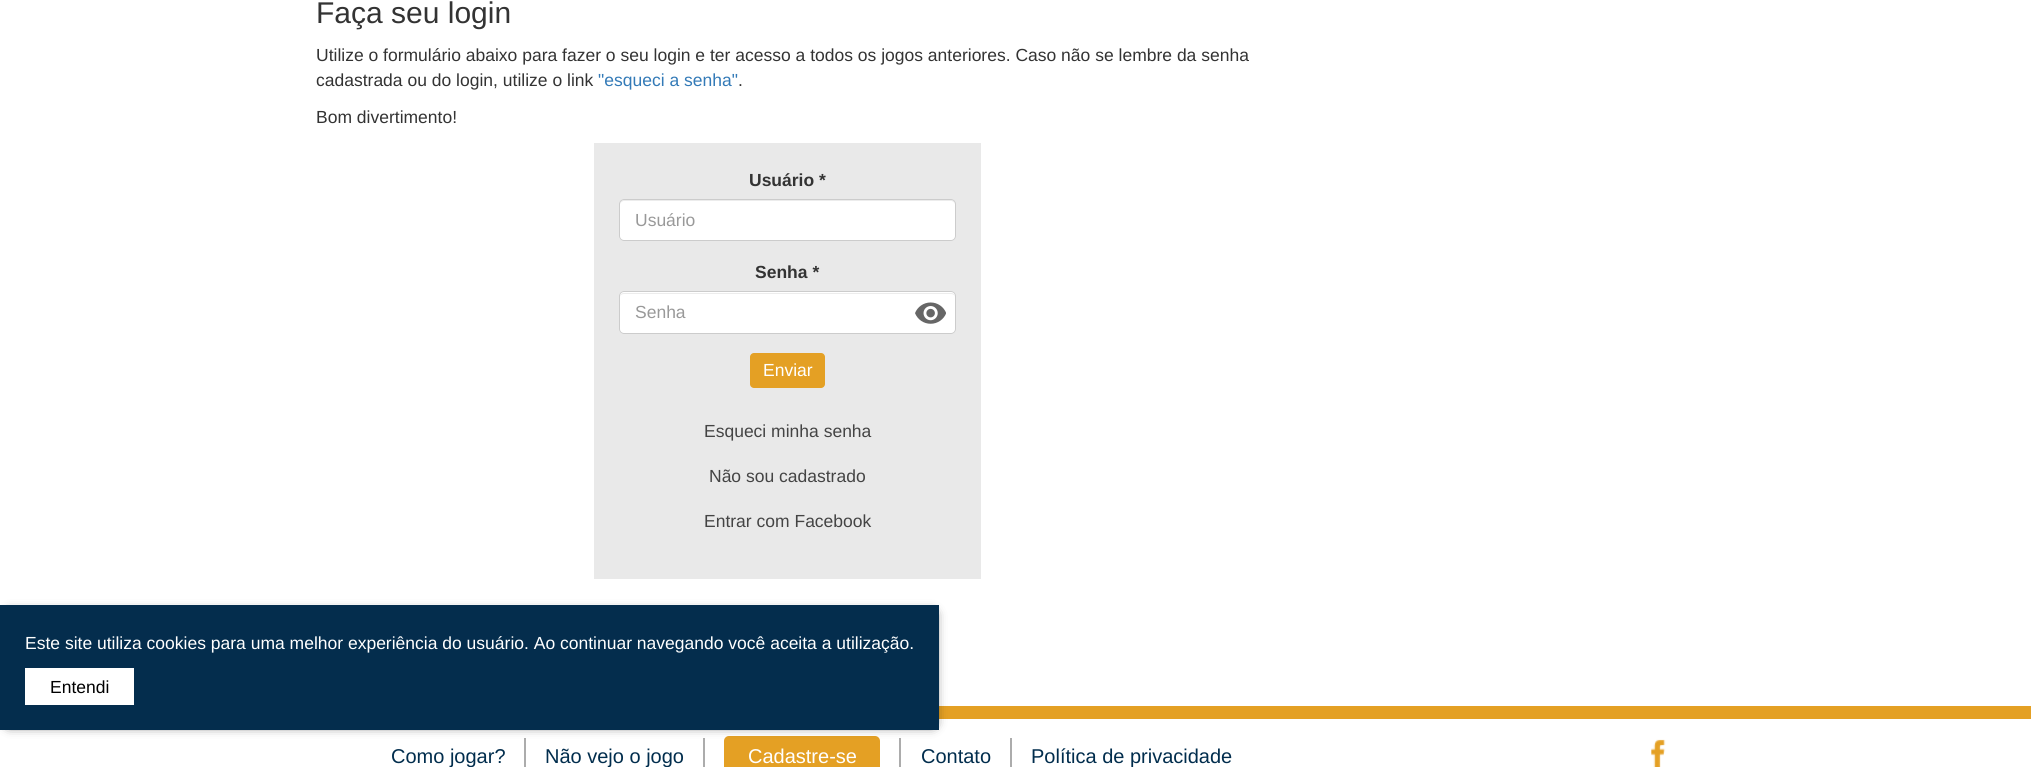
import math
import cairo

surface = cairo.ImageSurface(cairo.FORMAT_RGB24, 2031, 767)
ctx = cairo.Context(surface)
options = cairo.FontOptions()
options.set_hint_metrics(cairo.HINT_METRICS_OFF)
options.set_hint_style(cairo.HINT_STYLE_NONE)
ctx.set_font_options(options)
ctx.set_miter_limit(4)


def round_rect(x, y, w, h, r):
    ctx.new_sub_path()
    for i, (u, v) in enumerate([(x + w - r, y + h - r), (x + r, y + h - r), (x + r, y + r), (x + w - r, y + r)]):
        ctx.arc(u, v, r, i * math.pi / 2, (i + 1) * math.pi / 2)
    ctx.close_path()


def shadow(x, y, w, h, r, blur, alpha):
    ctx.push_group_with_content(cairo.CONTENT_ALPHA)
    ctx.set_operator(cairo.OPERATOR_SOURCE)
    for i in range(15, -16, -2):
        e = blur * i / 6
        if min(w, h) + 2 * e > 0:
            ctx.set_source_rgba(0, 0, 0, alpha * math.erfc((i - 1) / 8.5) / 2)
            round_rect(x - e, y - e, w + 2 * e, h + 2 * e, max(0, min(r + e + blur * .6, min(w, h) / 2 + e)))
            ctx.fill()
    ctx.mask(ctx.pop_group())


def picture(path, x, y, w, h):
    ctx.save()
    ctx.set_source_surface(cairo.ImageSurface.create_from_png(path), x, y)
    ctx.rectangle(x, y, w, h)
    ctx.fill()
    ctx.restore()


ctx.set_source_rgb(1, 1, 1)
ctx.paint()
ctx.select_font_face("Liberation Sans")
ctx.set_font_size(30)
ctx.set_source_rgb(0.2, 0.2, 0.2)
ctx.move_to(316, 23)
ctx.show_text("Faça seu login")
ctx.set_font_size(17.5)
ctx.move_to(316, 61)
ctx.show_text("Utilize o formulário abaixo para fazer o seu login e ter acesso a todos os jogos anteriores. Caso não se lembre da senha")
ctx.move_to(316, 86)
ctx.show_text("cadastrada ou do login, utilize o link")
ctx.set_source_rgb(0.2, 0.478, 0.718)
ctx.move_to(598, 86)
ctx.show_text("\"esqueci a senha\"")
ctx.set_source_rgb(0.2, 0.2, 0.2)
ctx.move_to(738, 86)
ctx.show_text(".")
ctx.move_to(316, 123)
ctx.show_text("Bom divertimento!")
ctx.set_source_rgb(0.914, 0.914, 0.914)
ctx.rectangle(594, 143, 387, 436)
ctx.fill()
ctx.select_font_face("Liberation Sans", cairo.FONT_SLANT_NORMAL, cairo.FONT_WEIGHT_BOLD)
ctx.set_source_rgb(0.2, 0.2, 0.2)
ctx.move_to(749, 186)
ctx.show_text("Usuário *")
ctx.set_source_rgb(1, 1, 1)
round_rect(619, 199, 337, 42, 5)
ctx.fill()
ctx.set_source_rgb(0.925, 0.925, 0.925)
ctx.new_path()
ctx.move_to(624, 201)
ctx.line_to(951, 201)
ctx.curve_to(953, 201, 955, 203, 955, 205)
ctx.curve_to(955, 202, 954, 200, 951, 200)
ctx.line_to(624, 200)
ctx.curve_to(621, 200, 620, 202, 620, 205)
ctx.curve_to(620, 203, 622, 201, 624, 201)
ctx.close_path()
ctx.fill()
round_rect(619.5, 199.5, 336, 41, 4.5)
ctx.set_source_rgb(0.8, 0.8, 0.8)
ctx.set_line_width(1)
ctx.stroke()
ctx.select_font_face("Liberation Sans")
ctx.set_source_rgb(0.6, 0.6, 0.6)
ctx.move_to(635, 226)
ctx.show_text("Usuário")
ctx.select_font_face("Liberation Sans", cairo.FONT_SLANT_NORMAL, cairo.FONT_WEIGHT_BOLD)
ctx.set_source_rgb(0.2, 0.2, 0.2)
ctx.move_to(755, 278)
ctx.show_text("Senha *")
ctx.set_source_rgb(1, 1, 1)
round_rect(619, 291, 337, 43, 5)
ctx.fill()
ctx.set_source_rgb(0.925, 0.925, 0.925)
ctx.new_path()
ctx.move_to(624, 294)
ctx.line_to(951, 294)
ctx.curve_to(953, 294, 955, 295, 955, 298)
ctx.curve_to(955, 295, 954, 293, 951, 293)
ctx.line_to(624, 293)
ctx.curve_to(621, 293, 620, 295, 620, 298)
ctx.curve_to(620, 295, 622, 294, 624, 294)
ctx.close_path()
ctx.fill()
round_rect(619.5, 291.5, 336, 42, 4.5)
ctx.set_source_rgb(0.8, 0.8, 0.8)
ctx.stroke()
ctx.select_font_face("Liberation Sans")
ctx.set_source_rgb(0.6, 0.6, 0.6)
ctx.move_to(635, 318)
ctx.show_text("Senha")
picture("img1.png", 915, 302, 31, 22)
ctx.set_source_rgb(0.894, 0.627, 0.141)
round_rect(750, 353, 75, 35, 4)
ctx.fill()
ctx.set_source_rgb(1, 1, 1)
ctx.move_to(763, 376)
ctx.show_text("Enviar")
ctx.set_source_rgb(0.267, 0.267, 0.267)
ctx.move_to(704, 437)
ctx.show_text("Esqueci minha senha")
ctx.move_to(709, 482)
ctx.show_text("Não sou cadastrado")
ctx.move_to(704, 527)
ctx.show_text("Entrar com Facebook")
ctx.set_source_rgb(0.894, 0.627, 0.141)
ctx.rectangle(939, 706, 1092, 13)
ctx.fill()
ctx.set_source_rgb(0.675, 0.675, 0.675)
ctx.rectangle(524, 738, 2, 29)
ctx.fill()
ctx.rectangle(703, 738, 2, 29)
ctx.fill()
ctx.rectangle(899, 738, 2, 29)
ctx.fill()
ctx.set_source_rgb(0.894, 0.627, 0.141)
round_rect(724, 736, 156, 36, 5)
ctx.fill()
ctx.set_source_rgb(0, 0, 0)
shadow(9, 614, 924, 110, 0, 6, 1)
ctx.set_source_rgb(0.016, 0.176, 0.302)
ctx.rectangle(0, 605, 939, 125)
ctx.fill()
ctx.set_source_rgb(1, 1, 1)
ctx.move_to(25, 649)
ctx.show_text("Este site utiliza cookies para uma melhor experiência do usuário. Ao continuar navegando você aceita a utilização.")
ctx.rectangle(25, 668, 109, 37)
ctx.fill()
ctx.set_source_rgb(0, 0, 0)
ctx.move_to(50, 693)
ctx.show_text("Entendi")
ctx.set_font_size(20)
ctx.set_source_rgb(0.004, 0.176, 0.302)
ctx.move_to(391, 763)
ctx.show_text("Como jogar?")
ctx.move_to(545, 763)
ctx.show_text("Não vejo o jogo")
ctx.set_source_rgb(1, 1, 1)
ctx.move_to(748, 763)
ctx.show_text("Cadastre-se")
ctx.set_source_rgb(0.675, 0.675, 0.675)
ctx.rectangle(1010, 738, 2, 29)
ctx.fill()
ctx.set_source_rgb(0.004, 0.176, 0.302)
ctx.move_to(921, 763)
ctx.show_text("Contato")
ctx.move_to(1031, 763)
ctx.show_text("Política de privacidade")
picture("img2.png", 1651, 739, 15, 28)
surface.write_to_png("page.png")
